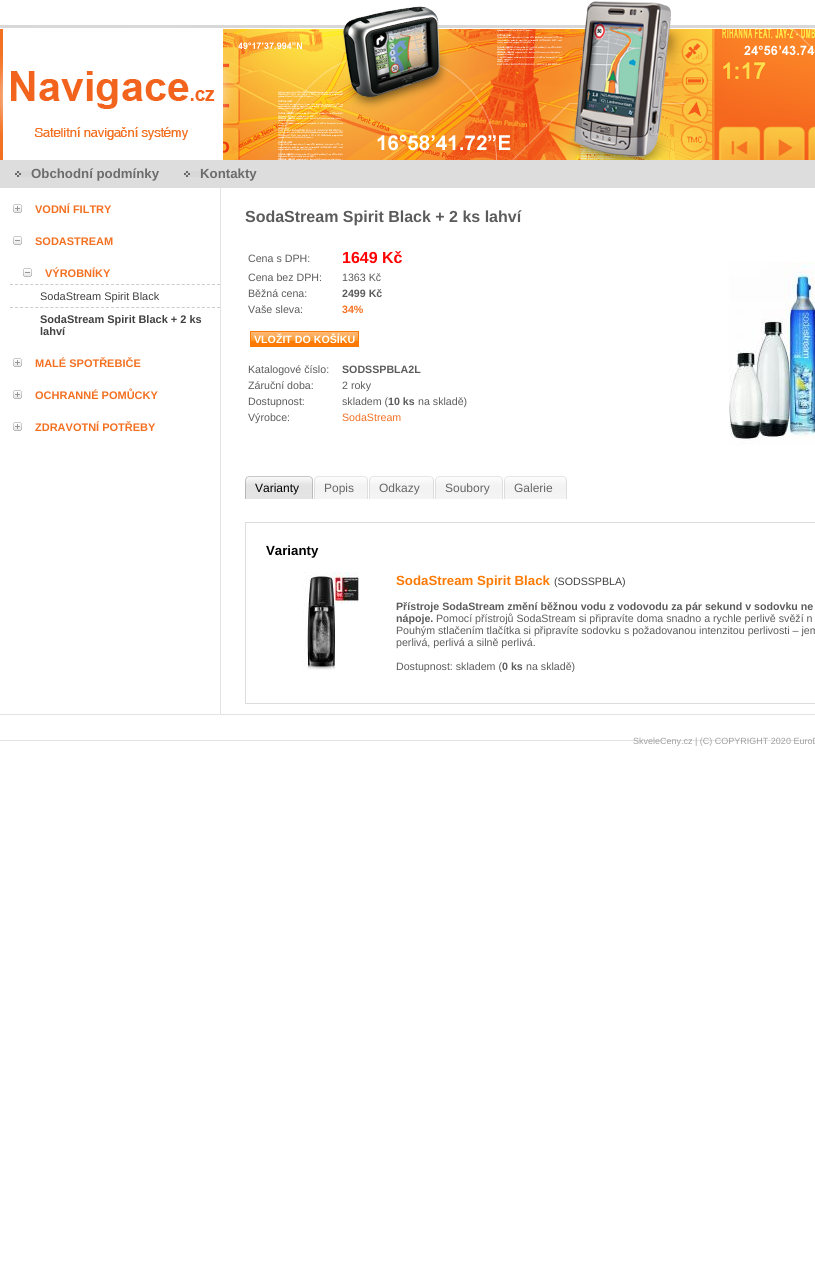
import math
import cairo

surface = cairo.ImageSurface(cairo.FORMAT_RGB24, 815, 1273)
ctx = cairo.Context(surface)
options = cairo.FontOptions()
options.set_hint_metrics(cairo.HINT_METRICS_OFF)
options.set_hint_style(cairo.HINT_STYLE_NONE)
ctx.set_font_options(options)
ctx.set_miter_limit(4)


def picture(path, x, y, w, h):
    ctx.save()
    ctx.set_source_surface(cairo.ImageSurface.create_from_png(path), x, y)
    ctx.rectangle(x, y, w, h)
    ctx.fill()
    ctx.restore()


ctx.set_source_rgb(1, 1, 1)
ctx.paint()
ctx.set_source_rgb(0.894, 0.886, 0.894)
ctx.rectangle(220, 188, 1, 526)
ctx.fill()
picture("img1.png", 0, 0, 815, 160)
ctx.set_source_rgb(0.867, 0.867, 0.867)
ctx.rectangle(0, 160, 815, 28)
ctx.fill()
picture("img2.png", 15, 171, 16, 6)
ctx.select_font_face("Liberation Sans", cairo.FONT_SLANT_NORMAL, cairo.FONT_WEIGHT_BOLD)
ctx.set_font_size(13.25)
ctx.set_source_rgb(0.424, 0.424, 0.424)
ctx.move_to(31, 178)
ctx.show_text("Obchodní podmínky")
picture("img2.png", 184, 171, 16, 6)
ctx.move_to(200, 178)
ctx.show_text("Kontakty")
picture("img3.png", 13, 204, 9, 9)
ctx.set_font_size(11)
ctx.set_source_rgb(0.953, 0.439, 0.129)
ctx.move_to(35, 213)
ctx.show_text("VODNÍ FILTRY")
picture("img4.png", 13, 236, 9, 9)
ctx.move_to(35, 245)
ctx.show_text("SODASTREAM")
picture("img4.png", 23, 268, 9, 9)
ctx.move_to(45, 277)
ctx.show_text("VÝROBNÍKY")
ctx.new_path()
ctx.move_to(10, 284.5)
ctx.line_to(220, 284.5)
ctx.set_source_rgb(0.8, 0.8, 0.8)
ctx.set_line_width(1)
ctx.set_dash([3, 2.05])
ctx.stroke()
ctx.select_font_face("Liberation Sans")
ctx.set_source_rgb(0.251, 0.251, 0.251)
ctx.move_to(40, 300)
ctx.show_text("SodaStream Spirit Black")
ctx.new_path()
ctx.move_to(10, 307.5)
ctx.line_to(220, 307.5)
ctx.set_source_rgb(0.8, 0.8, 0.8)
ctx.stroke()
ctx.select_font_face("Liberation Sans", cairo.FONT_SLANT_NORMAL, cairo.FONT_WEIGHT_BOLD)
ctx.set_source_rgb(0.251, 0.251, 0.251)
ctx.move_to(40, 323)
ctx.show_text("SodaStream Spirit Black + 2 ks")
ctx.move_to(40, 335)
ctx.show_text("lahví")
picture("img3.png", 13, 358, 9, 9)
ctx.set_source_rgb(0.953, 0.439, 0.129)
ctx.move_to(35, 367)
ctx.show_text("MALÉ SPOTŘEBIČE")
picture("img3.png", 13, 390, 9, 9)
ctx.move_to(35, 399)
ctx.show_text("OCHRANNÉ POMŮCKY")
picture("img3.png", 13, 422, 9, 9)
ctx.move_to(35, 431)
ctx.show_text("ZDRAVOTNÍ POTŘEBY")
ctx.set_font_size(16)
ctx.set_source_rgb(0.357, 0.357, 0.357)
ctx.move_to(245, 222)
ctx.show_text("SodaStream Spirit Black + 2 ks lahví")
ctx.select_font_face("Liberation Sans")
ctx.set_font_size(10.65)
ctx.move_to(248, 262)
ctx.show_text("Cena s DPH:")
ctx.select_font_face("Liberation Sans", cairo.FONT_SLANT_NORMAL, cairo.FONT_WEIGHT_BOLD)
ctx.set_font_size(16)
ctx.set_source_rgb(1, 0, 0)
ctx.move_to(342, 263)
ctx.show_text("1649 Kč")
ctx.select_font_face("Liberation Sans")
ctx.set_font_size(10.65)
ctx.set_source_rgb(0.357, 0.357, 0.357)
ctx.move_to(248, 281)
ctx.show_text("Cena bez DPH:")
ctx.move_to(342, 281)
ctx.show_text("1363 Kč")
ctx.move_to(248, 297)
ctx.show_text("Běžná cena:")
ctx.select_font_face("Liberation Sans", cairo.FONT_SLANT_NORMAL, cairo.FONT_WEIGHT_BOLD)
ctx.move_to(342, 297)
ctx.show_text("2499 Kč")
ctx.select_font_face("Liberation Sans")
ctx.move_to(248, 313)
ctx.show_text("Vaše sleva:")
ctx.select_font_face("Liberation Sans", cairo.FONT_SLANT_NORMAL, cairo.FONT_WEIGHT_BOLD)
ctx.set_source_rgb(0.953, 0.439, 0.129)
ctx.move_to(342, 313)
ctx.show_text("34%")
picture("img5.png", 251, 332, 107, 14)
ctx.rectangle(250.5, 331.5, 108, 15)
ctx.set_source_rgb(0.988, 0.478, 0.016)
ctx.set_dash([])
ctx.stroke()
ctx.set_source_rgb(1, 1, 1)
ctx.move_to(254, 343)
ctx.show_text("VLOŽIT DO KOŠÍKU")
ctx.select_font_face("Liberation Sans")
ctx.set_source_rgb(0.357, 0.357, 0.357)
ctx.move_to(248, 373)
ctx.show_text("Katalogové číslo:")
ctx.select_font_face("Liberation Sans", cairo.FONT_SLANT_NORMAL, cairo.FONT_WEIGHT_BOLD)
ctx.move_to(342, 373)
ctx.show_text("SODSSPBLA2L")
ctx.select_font_face("Liberation Sans")
ctx.move_to(248, 389)
ctx.show_text("Záruční doba:")
ctx.move_to(342, 389)
ctx.show_text("2 roky")
ctx.move_to(248, 405)
ctx.show_text("Dostupnost:")
ctx.move_to(342, 405)
ctx.show_text("skladem (")
ctx.select_font_face("Liberation Sans", cairo.FONT_SLANT_NORMAL, cairo.FONT_WEIGHT_BOLD)
ctx.move_to(388, 405)
ctx.show_text("10 ks")
ctx.select_font_face("Liberation Sans")
ctx.move_to(418, 405)
ctx.show_text("na skladě)")
ctx.move_to(248, 421)
ctx.show_text("Výrobce:")
ctx.set_source_rgb(0.953, 0.439, 0.129)
ctx.move_to(342, 421)
ctx.show_text("SodaStream")
picture("img6.png", 729, 262, 86, 183)
picture("img7.png", 245, 476, 4, 23)
picture("img8.png", 249, 476, 64, 23)
ctx.set_font_size(12)
ctx.set_source_rgb(0, 0, 0)
ctx.move_to(255, 492)
ctx.show_text("Varianty")
picture("img9.png", 314, 476, 4, 23)
picture("img10.png", 318, 476, 50, 23)
ctx.set_source_rgb(0.4, 0.4, 0.4)
ctx.move_to(324, 492)
ctx.show_text("Popis")
picture("img9.png", 369, 476, 4, 23)
picture("img11.png", 373, 476, 61, 23)
ctx.move_to(379, 492)
ctx.show_text("Odkazy")
picture("img9.png", 435, 476, 4, 23)
picture("img12.png", 439, 476, 64, 23)
ctx.move_to(445, 492)
ctx.show_text("Soubory")
picture("img9.png", 504, 476, 4, 23)
picture("img13.png", 508, 476, 59, 23)
ctx.move_to(514, 492)
ctx.show_text("Galerie")
ctx.rectangle(245.5, 522.5, 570, 181)
ctx.set_source_rgb(0.867, 0.867, 0.867)
ctx.stroke()
ctx.select_font_face("Liberation Sans", cairo.FONT_SLANT_NORMAL, cairo.FONT_WEIGHT_BOLD)
ctx.set_font_size(13.25)
ctx.set_source_rgb(0, 0, 0)
ctx.move_to(266, 555)
ctx.show_text("Varianty")
picture("img14.png", 303, 572, 56, 98)
ctx.set_source_rgb(0.988, 0.478, 0.016)
ctx.move_to(396, 585)
ctx.show_text("SodaStream Spirit Black")
ctx.select_font_face("Liberation Sans")
ctx.set_font_size(10.65)
ctx.set_source_rgb(0.251, 0.251, 0.251)
ctx.move_to(554, 585)
ctx.show_text("(SODSSPBLA)")
ctx.select_font_face("Liberation Sans", cairo.FONT_SLANT_NORMAL, cairo.FONT_WEIGHT_BOLD)
ctx.set_source_rgb(0.357, 0.357, 0.357)
ctx.move_to(396, 610)
ctx.show_text("Přístroje SodaStream změní běžnou vodu z vodovodu za pár sekund v sodovku ne")
ctx.move_to(396, 622)
ctx.show_text("nápoje.")
ctx.select_font_face("Liberation Sans")
ctx.move_to(436, 622)
ctx.show_text("Pomocí přístrojů SodaStream si připravíte doma snadno a rychle perlivě svěží n")
ctx.move_to(396, 634)
ctx.show_text("Pouhým stlačením tlačítka si připravíte sodovku s požadovanou intenzitou perlivosti – jem")
ctx.move_to(396, 646)
ctx.show_text("perlivá, perlivá a silně perlivá.")
ctx.move_to(396, 670)
ctx.show_text("Dostupnost: skladem (")
ctx.select_font_face("Liberation Sans", cairo.FONT_SLANT_NORMAL, cairo.FONT_WEIGHT_BOLD)
ctx.move_to(502, 670)
ctx.show_text("0 ks")
ctx.select_font_face("Liberation Sans")
ctx.move_to(526, 670)
ctx.show_text("na skladě)")
ctx.set_source_rgb(1, 1, 1)
ctx.rectangle(424, 672, 149, 1)
ctx.fill()
ctx.set_source_rgb(0.89, 0.89, 0.89)
ctx.rectangle(0, 714, 815, 1)
ctx.fill()
ctx.rectangle(0, 740, 815, 1)
ctx.fill()
ctx.set_font_size(9)
ctx.set_source_rgb(0.624, 0.624, 0.624)
ctx.move_to(633, 744)
ctx.show_text("SkveleCeny.cz | (C) COPYRIGHT 2020 EuroD")
surface.write_to_png("page.png")
